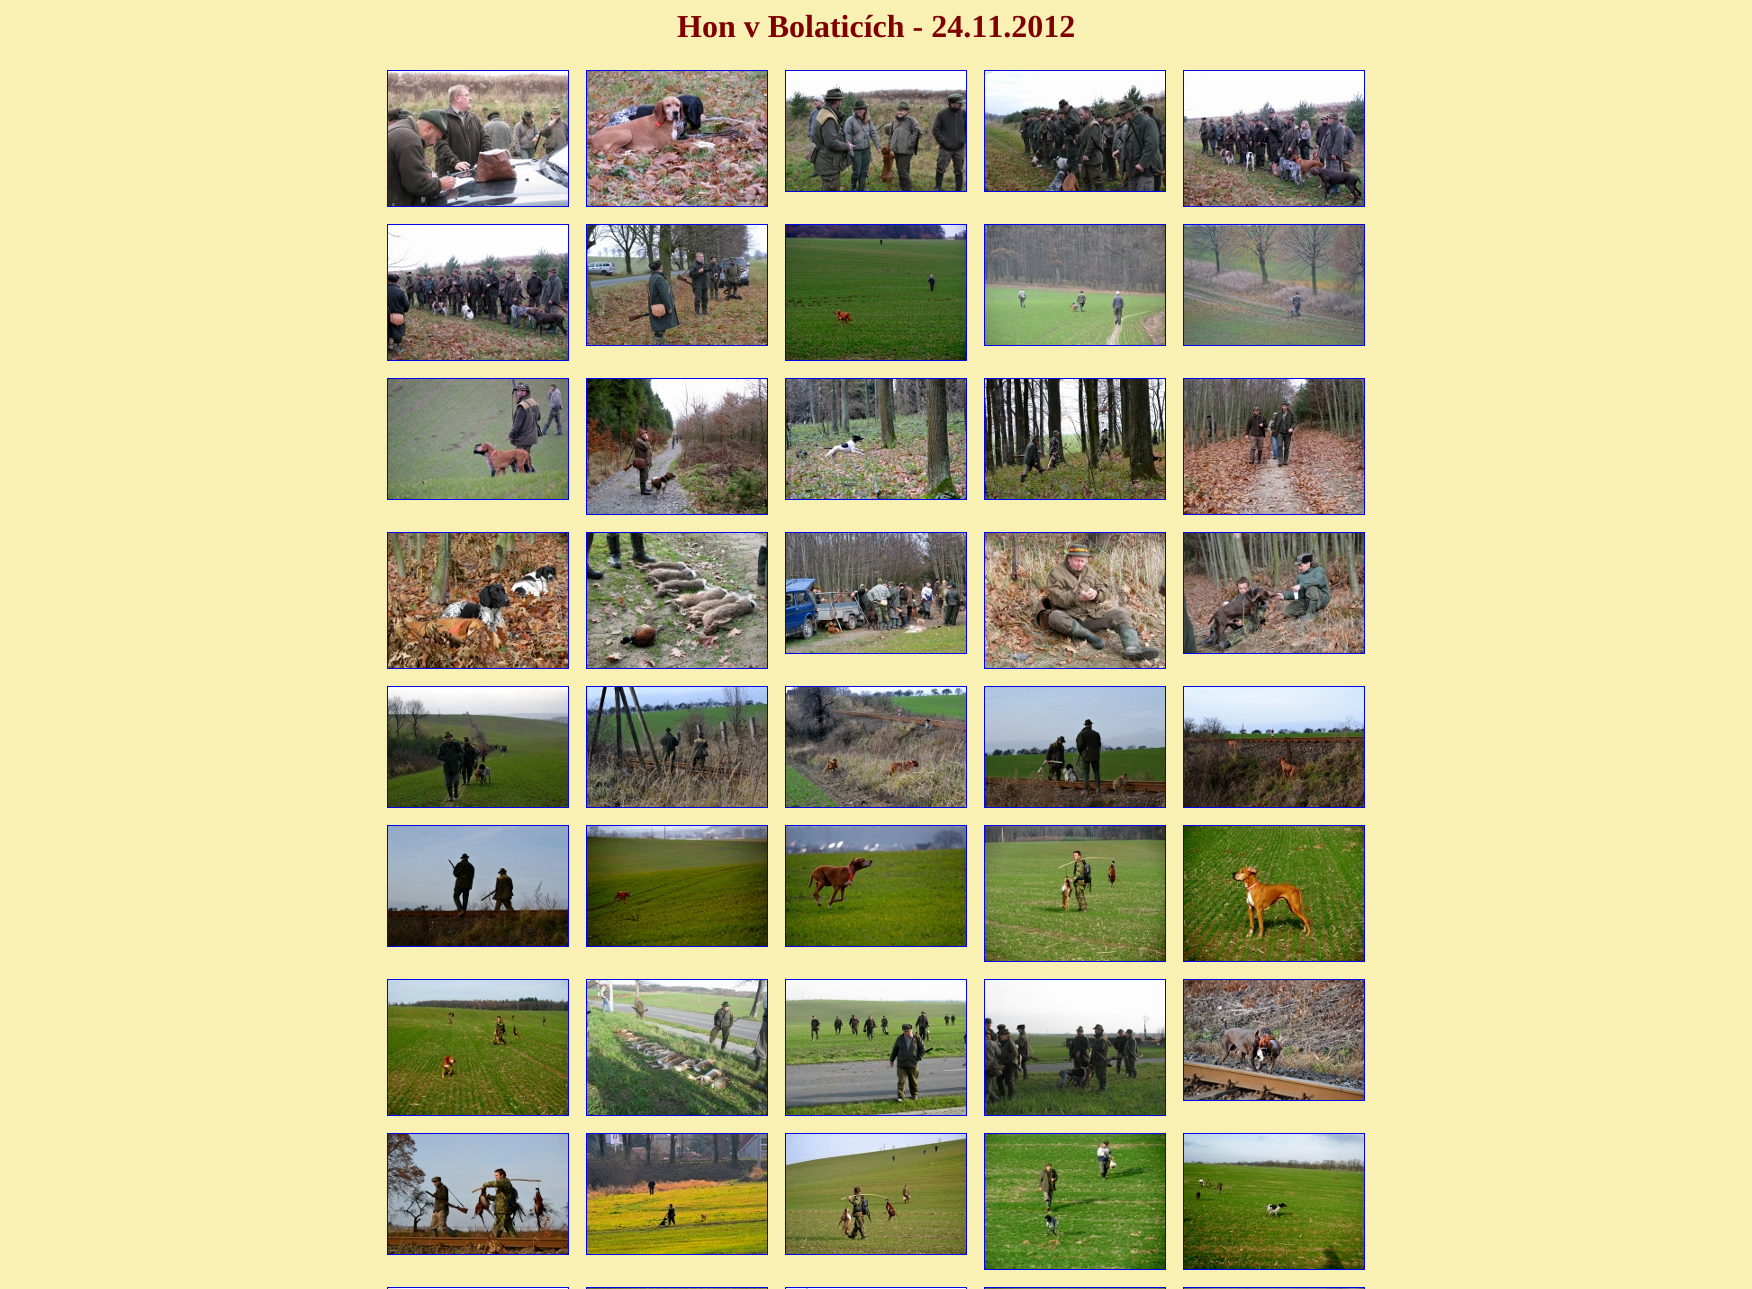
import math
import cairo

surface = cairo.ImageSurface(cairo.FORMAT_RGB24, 1752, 1289)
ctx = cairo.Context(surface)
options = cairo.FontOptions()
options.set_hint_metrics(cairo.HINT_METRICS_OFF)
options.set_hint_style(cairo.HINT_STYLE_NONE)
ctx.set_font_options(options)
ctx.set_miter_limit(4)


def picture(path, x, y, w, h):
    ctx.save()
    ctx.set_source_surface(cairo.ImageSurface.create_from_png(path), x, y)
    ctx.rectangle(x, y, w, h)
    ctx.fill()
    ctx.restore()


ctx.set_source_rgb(0.973, 0.941, 0.706)
ctx.paint()
ctx.select_font_face("Liberation Serif", cairo.FONT_SLANT_NORMAL, cairo.FONT_WEIGHT_BOLD)
ctx.set_font_size(32)
ctx.set_source_rgb(0.502, 0, 0)
ctx.move_to(677, 37)
ctx.show_text("Hon v Bolaticích - 24.11.2012")
ctx.rectangle(387.5, 70.5, 181, 136)
ctx.set_source_rgb(0, 0, 0.933)
ctx.set_line_width(1)
ctx.stroke()
picture("img1.png", 388, 71, 180, 135)
ctx.rectangle(586.5, 70.5, 181, 136)
ctx.stroke()
picture("img2.png", 587, 71, 180, 135)
ctx.rectangle(785.5, 70.5, 181, 121)
ctx.stroke()
picture("img3.png", 786, 71, 180, 120)
ctx.rectangle(984.5, 70.5, 181, 121)
ctx.stroke()
picture("img4.png", 985, 71, 180, 120)
ctx.rectangle(1183.5, 70.5, 181, 136)
ctx.stroke()
picture("img5.png", 1184, 71, 180, 135)
ctx.rectangle(387.5, 224.5, 181, 136)
ctx.stroke()
picture("img6.png", 388, 225, 180, 135)
ctx.rectangle(586.5, 224.5, 181, 121)
ctx.stroke()
picture("img7.png", 587, 225, 180, 120)
ctx.rectangle(785.5, 224.5, 181, 136)
ctx.stroke()
picture("img8.png", 786, 225, 180, 135)
ctx.rectangle(984.5, 224.5, 181, 121)
ctx.stroke()
picture("img9.png", 985, 225, 180, 120)
ctx.rectangle(1183.5, 224.5, 181, 121)
ctx.stroke()
picture("img10.png", 1184, 225, 180, 120)
ctx.rectangle(387.5, 378.5, 181, 121)
ctx.stroke()
picture("img11.png", 388, 379, 180, 120)
ctx.rectangle(586.5, 378.5, 181, 136)
ctx.stroke()
picture("img12.png", 587, 379, 180, 135)
ctx.rectangle(785.5, 378.5, 181, 121)
ctx.stroke()
picture("img13.png", 786, 379, 180, 120)
ctx.rectangle(984.5, 378.5, 181, 121)
ctx.stroke()
picture("img14.png", 985, 379, 180, 120)
ctx.rectangle(1183.5, 378.5, 181, 136)
ctx.stroke()
picture("img15.png", 1184, 379, 180, 135)
ctx.rectangle(387.5, 532.5, 181, 136)
ctx.stroke()
picture("img16.png", 388, 533, 180, 135)
ctx.rectangle(586.5, 532.5, 181, 136)
ctx.stroke()
picture("img17.png", 587, 533, 180, 135)
ctx.rectangle(785.5, 532.5, 181, 121)
ctx.stroke()
picture("img18.png", 786, 533, 180, 120)
ctx.rectangle(984.5, 532.5, 181, 136)
ctx.stroke()
picture("img19.png", 985, 533, 180, 135)
ctx.rectangle(1183.5, 532.5, 181, 121)
ctx.stroke()
picture("img20.png", 1184, 533, 180, 120)
ctx.rectangle(387.5, 686.5, 181, 121)
ctx.stroke()
picture("img21.png", 388, 687, 180, 120)
ctx.rectangle(586.5, 686.5, 181, 121)
ctx.stroke()
picture("img22.png", 587, 687, 180, 120)
ctx.rectangle(785.5, 686.5, 181, 121)
ctx.stroke()
picture("img23.png", 786, 687, 180, 120)
ctx.rectangle(984.5, 686.5, 181, 121)
ctx.stroke()
picture("img24.png", 985, 687, 180, 120)
ctx.rectangle(1183.5, 686.5, 181, 121)
ctx.stroke()
picture("img25.png", 1184, 687, 180, 120)
ctx.rectangle(387.5, 825.5, 181, 121)
ctx.stroke()
picture("img26.png", 388, 826, 180, 120)
ctx.rectangle(586.5, 825.5, 181, 121)
ctx.stroke()
picture("img27.png", 587, 826, 180, 120)
ctx.rectangle(785.5, 825.5, 181, 121)
ctx.stroke()
picture("img28.png", 786, 826, 180, 120)
ctx.rectangle(984.5, 825.5, 181, 136)
ctx.stroke()
picture("img29.png", 985, 826, 180, 135)
ctx.rectangle(1183.5, 825.5, 181, 136)
ctx.stroke()
picture("img30.png", 1184, 826, 180, 135)
ctx.rectangle(387.5, 979.5, 181, 136)
ctx.stroke()
picture("img31.png", 388, 980, 180, 135)
ctx.rectangle(586.5, 979.5, 181, 136)
ctx.stroke()
picture("img32.png", 587, 980, 180, 135)
ctx.rectangle(785.5, 979.5, 181, 136)
ctx.stroke()
picture("img33.png", 786, 980, 180, 135)
ctx.rectangle(984.5, 979.5, 181, 136)
ctx.stroke()
picture("img34.png", 985, 980, 180, 135)
ctx.rectangle(1183.5, 979.5, 181, 121)
ctx.stroke()
picture("img35.png", 1184, 980, 180, 120)
ctx.rectangle(387.5, 1133.5, 181, 121)
ctx.stroke()
picture("img36.png", 388, 1134, 180, 120)
ctx.rectangle(586.5, 1133.5, 181, 121)
ctx.stroke()
picture("img37.png", 587, 1134, 180, 120)
ctx.rectangle(785.5, 1133.5, 181, 121)
ctx.stroke()
picture("img38.png", 786, 1134, 180, 120)
ctx.rectangle(984.5, 1133.5, 181, 136)
ctx.stroke()
picture("img39.png", 985, 1134, 180, 135)
ctx.rectangle(1183.5, 1133.5, 181, 136)
ctx.stroke()
picture("img40.png", 1184, 1134, 180, 135)
ctx.rectangle(387.5, 1287.5, 181, 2)
ctx.stroke()
picture("img41.png", 388, 1288, 180, 1)
ctx.rectangle(586.5, 1287.5, 181, 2)
ctx.stroke()
picture("img42.png", 587, 1288, 180, 1)
ctx.rectangle(785.5, 1287.5, 181, 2)
ctx.stroke()
picture("img43.png", 786, 1288, 180, 1)
ctx.rectangle(984.5, 1287.5, 181, 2)
ctx.stroke()
picture("img44.png", 985, 1288, 180, 1)
ctx.rectangle(1183.5, 1287.5, 181, 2)
ctx.stroke()
picture("img45.png", 1184, 1288, 180, 1)
surface.write_to_png("page.png")
